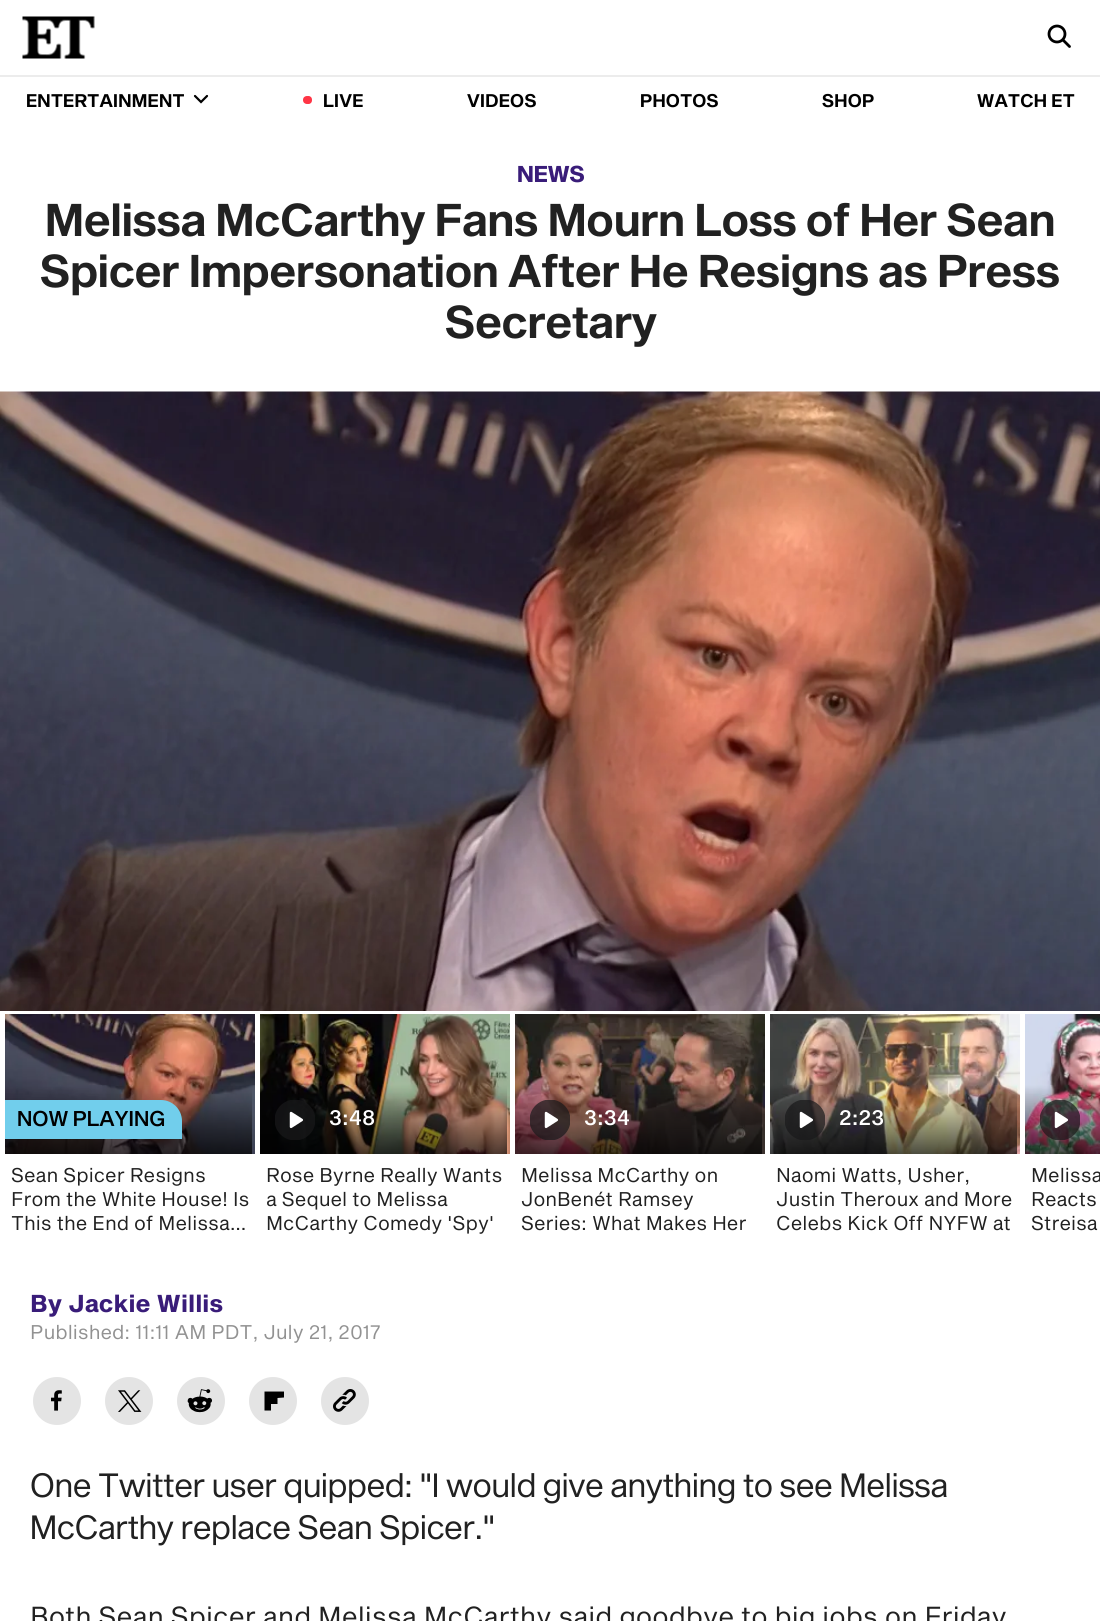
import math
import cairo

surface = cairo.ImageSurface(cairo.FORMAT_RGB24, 1100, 1621)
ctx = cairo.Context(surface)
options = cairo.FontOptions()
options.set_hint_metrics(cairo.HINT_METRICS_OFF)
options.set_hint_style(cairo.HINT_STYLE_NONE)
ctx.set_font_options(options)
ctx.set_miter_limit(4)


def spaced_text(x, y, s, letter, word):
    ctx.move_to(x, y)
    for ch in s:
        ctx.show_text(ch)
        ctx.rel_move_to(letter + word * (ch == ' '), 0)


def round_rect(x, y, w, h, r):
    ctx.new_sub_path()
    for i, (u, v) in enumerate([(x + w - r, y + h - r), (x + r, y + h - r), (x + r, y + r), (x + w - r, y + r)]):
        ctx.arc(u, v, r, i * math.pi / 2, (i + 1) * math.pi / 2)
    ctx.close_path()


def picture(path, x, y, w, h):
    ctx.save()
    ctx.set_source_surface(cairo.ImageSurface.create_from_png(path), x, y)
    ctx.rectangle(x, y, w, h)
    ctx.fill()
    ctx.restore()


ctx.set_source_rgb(1, 1, 1)
ctx.paint()
picture("img1.png", 22, 16, 73, 43)
ctx.arc(1057, 34, 8, 0, 2 * math.pi)
ctx.set_source_rgb(0, 0, 0)
ctx.set_line_width(2.8)
ctx.stroke()
ctx.new_path()
ctx.move_to(1063.5, 40.5)
ctx.line_to(1069.5, 46.5)
ctx.set_line_cap(cairo.LINE_CAP_ROUND)
ctx.set_line_join(cairo.LINE_JOIN_ROUND)
ctx.stroke()
ctx.set_source_rgb(0.922, 0.922, 0.922)
ctx.rectangle(0, 75, 1100, 2)
ctx.fill()
ctx.select_font_face("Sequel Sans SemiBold")
ctx.set_font_size(18)
ctx.set_source_rgb(0, 0, 0)
spaced_text(26, 107, "ENTERTAINMENT", 0.25, 0)
ctx.new_path()
ctx.move_to(207, 96)
ctx.line_to(201, 102)
ctx.line_to(195, 96)
ctx.set_line_width(2.2)
ctx.set_line_join(cairo.LINE_JOIN_MITER)
ctx.stroke()
ctx.set_source_rgb(1, 0.208, 0.271)
round_rect(305, 96, 7, 8, 3.5)
ctx.fill()
ctx.arc(307, 100, 4, 0, 2 * math.pi)
ctx.fill()
ctx.set_source_rgb(0, 0, 0)
spaced_text(323, 107, "LIVE", 0.25, 0)
spaced_text(467, 107, "VIDEOS", 0.25, 0)
spaced_text(640, 107, "PHOTOS", 0.25, 0)
spaced_text(822, 107, "SHOP", 0.25, 0)
spaced_text(977, 107, "WATCH ET", 0.25, 0)
ctx.select_font_face("Sequel Sans", cairo.FONT_SLANT_NORMAL, cairo.FONT_WEIGHT_BOLD)
ctx.set_font_size(22.5)
ctx.set_source_rgb(0.224, 0.11, 0.475)
ctx.move_to(517, 182)
ctx.show_text("NEWS")
ctx.select_font_face("Sequel Sans SemiBold")
ctx.set_font_size(45)
ctx.set_source_rgb(0.129, 0.129, 0.129)
ctx.move_to(45, 236)
ctx.show_text("Melissa McCarthy Fans Mourn Loss of Her Sean")
ctx.move_to(40, 287)
ctx.show_text("Spicer Impersonation After He Resigns as Press")
ctx.move_to(445, 338)
ctx.show_text("Secretary")
picture("img2.png", 0, 391, 1100, 620)
picture("img3.png", 5, 1014, 250, 140)
ctx.set_source_rgb(0.443, 0.808, 0.922)
ctx.new_path()
ctx.move_to(5, 1100)
ctx.line_to(161, 1100)
ctx.curve_to(172.5, 1100, 182, 1109.5, 182, 1121)
ctx.line_to(182, 1139)
ctx.line_to(5, 1139)
ctx.close_path()
ctx.fill()
ctx.select_font_face("Sequel Sans Medium")
ctx.set_font_size(21)
ctx.set_source_rgb(0, 0, 0)
ctx.move_to(17, 1126)
ctx.show_text("NOW PLAYING")
ctx.select_font_face("Sequel Sans")
ctx.set_font_size(19.5)
ctx.set_source_rgb(0.129, 0.129, 0.129)
ctx.move_to(11, 1182)
ctx.show_text("Sean Spicer Resigns")
ctx.move_to(11, 1206)
ctx.show_text("From the White House! Is")
ctx.move_to(11, 1230)
ctx.show_text("This the End of Melissa…")
picture("img4.png", 260, 1014, 250, 140)
picture("img5.png", 275, 1100, 40, 40)
ctx.select_font_face("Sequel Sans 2 Medium")
ctx.set_font_size(21)
ctx.set_source_rgb(1, 1, 1)
ctx.move_to(329, 1125)
ctx.show_text("3:48")
ctx.select_font_face("Sequel Sans")
ctx.set_font_size(19.5)
ctx.set_source_rgb(0.129, 0.129, 0.129)
ctx.move_to(266, 1182)
ctx.show_text("Rose Byrne Really Wants")
ctx.move_to(266, 1206)
ctx.show_text("a Sequel to Melissa")
ctx.move_to(266, 1230)
ctx.show_text("McCarthy Comedy 'Spy'")
picture("img6.png", 515, 1014, 250, 140)
picture("img7.png", 530, 1100, 40, 40)
ctx.select_font_face("Sequel Sans 2 Medium")
ctx.set_font_size(21)
ctx.set_source_rgb(1, 1, 1)
ctx.move_to(584, 1125)
ctx.show_text("3:34")
ctx.select_font_face("Sequel Sans")
ctx.set_font_size(19.5)
ctx.set_source_rgb(0.129, 0.129, 0.129)
ctx.move_to(521, 1182)
ctx.show_text("Melissa McCarthy on")
ctx.move_to(521, 1206)
ctx.show_text("JonBenét Ramsey")
ctx.move_to(521, 1230)
ctx.show_text("Series: What Makes Her")
picture("img8.png", 770, 1014, 250, 140)
picture("img9.png", 785, 1100, 40, 40)
ctx.select_font_face("Sequel Sans 2 Medium")
ctx.set_font_size(21)
ctx.set_source_rgb(1, 1, 1)
ctx.move_to(839, 1125)
ctx.show_text("2:23")
ctx.select_font_face("Sequel Sans")
ctx.set_font_size(19.5)
ctx.set_source_rgb(0.129, 0.129, 0.129)
ctx.move_to(776, 1182)
ctx.show_text("Naomi Watts, Usher,")
ctx.move_to(776, 1206)
ctx.show_text("Justin Theroux and More")
ctx.move_to(776, 1230)
ctx.show_text("Celebs Kick Off NYFW at")
picture("img10.png", 1025, 1014, 75, 140)
picture("img11.png", 1040, 1100, 40, 40)
ctx.move_to(1031, 1182)
ctx.show_text("Melissa")
ctx.move_to(1031, 1206)
ctx.show_text("Reacts")
ctx.move_to(1031, 1230)
ctx.show_text("Streisa")
ctx.select_font_face("Sequel Sans 2", cairo.FONT_SLANT_NORMAL, cairo.FONT_WEIGHT_BOLD)
ctx.set_font_size(24)
ctx.set_source_rgb(0.224, 0.11, 0.475)
ctx.move_to(30, 1312)
ctx.show_text("By Jackie Willis")
ctx.select_font_face("Sequel Sans")
ctx.set_font_size(19.5)
ctx.set_source_rgb(0.573, 0.573, 0.573)
ctx.move_to(30, 1339)
ctx.show_text("Published: 11:11 AM PDT, July 21, 2017")
picture("img12.png", 33, 1377, 48, 48)
picture("img13.png", 105, 1377, 48, 48)
picture("img14.png", 177, 1377, 48, 48)
ctx.set_source_rgb(0.894, 0.894, 0.894)
ctx.arc(273, 1401, 24, 0, 2 * math.pi)
ctx.fill()
ctx.set_source_rgb(0, 0, 0)
ctx.new_path()
ctx.move_to(264.5, 1401)
ctx.line_to(264.5, 1410.5)
ctx.line_to(271, 1410.5)
ctx.line_to(271, 1404)
ctx.line_to(277.5, 1404)
ctx.line_to(277.5, 1398)
ctx.line_to(284, 1397.5)
ctx.line_to(284, 1391.5)
ctx.line_to(264.5, 1391.5)
ctx.close_path()
ctx.fill()
picture("img15.png", 321, 1377, 48, 48)
ctx.select_font_face("Sequel Sans 2")
ctx.set_font_size(33)
ctx.set_source_rgb(0.129, 0.129, 0.129)
ctx.move_to(30, 1497)
ctx.show_text("One Twitter user quipped: \"I would give anything to see Melissa")
ctx.move_to(30, 1539)
ctx.show_text("McCarthy replace Sean Spicer.\"")
ctx.select_font_face("Sequel Sans")
ctx.set_font_size(27)
ctx.move_to(30, 1626)
ctx.show_text("Both Sean Spicer and Melissa McCarthy said goodbye to big jobs on Friday")
surface.write_to_png("page.png")
